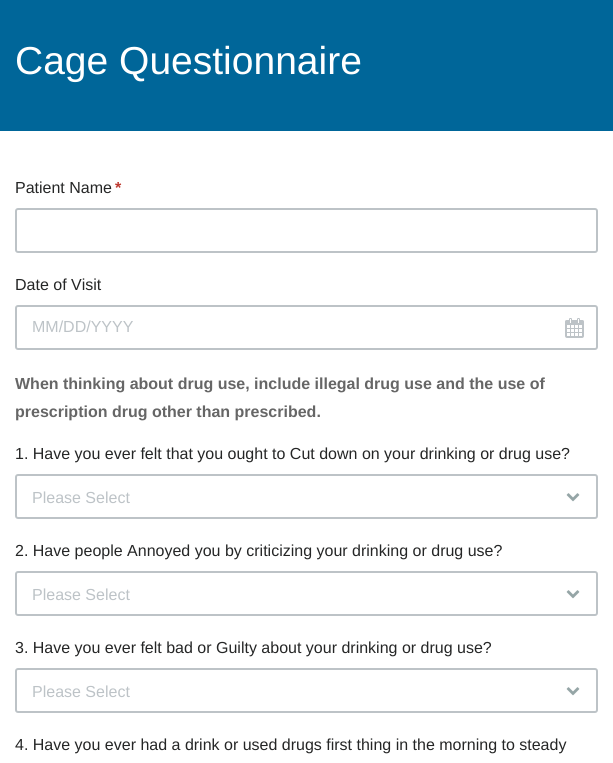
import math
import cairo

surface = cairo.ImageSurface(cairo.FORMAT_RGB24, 613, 763)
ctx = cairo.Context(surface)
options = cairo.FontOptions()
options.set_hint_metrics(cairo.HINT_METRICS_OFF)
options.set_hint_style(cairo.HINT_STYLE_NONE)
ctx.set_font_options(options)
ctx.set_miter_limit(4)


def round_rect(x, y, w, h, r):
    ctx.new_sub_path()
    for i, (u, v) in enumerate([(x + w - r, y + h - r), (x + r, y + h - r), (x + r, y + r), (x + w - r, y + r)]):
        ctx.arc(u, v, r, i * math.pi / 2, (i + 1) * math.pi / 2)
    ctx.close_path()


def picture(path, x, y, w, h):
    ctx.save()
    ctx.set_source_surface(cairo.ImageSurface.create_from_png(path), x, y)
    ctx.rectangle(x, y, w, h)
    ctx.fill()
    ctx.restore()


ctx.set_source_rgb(1, 1, 1)
ctx.paint()
ctx.set_source_rgb(0, 0.4, 0.6)
ctx.rectangle(0, 0, 613, 131)
ctx.fill()
ctx.select_font_face("Liberation Sans")
ctx.set_font_size(39)
ctx.set_source_rgb(1, 1, 1)
ctx.move_to(15, 74)
ctx.show_text("Cage Questionnaire")
ctx.set_font_size(16)
ctx.set_source_rgb(0.145, 0.149, 0.149)
ctx.move_to(15, 193)
ctx.show_text("Patient Name")
ctx.select_font_face("Liberation Sans", cairo.FONT_SLANT_NORMAL, cairo.FONT_WEIGHT_BOLD)
ctx.set_source_rgb(0.745, 0.227, 0.188)
ctx.move_to(115, 193)
ctx.show_text("*")
round_rect(16, 209, 581, 43, 2)
ctx.set_source_rgb(0.741, 0.765, 0.78)
ctx.stroke()
ctx.select_font_face("Liberation Sans")
ctx.set_source_rgb(0.145, 0.149, 0.149)
ctx.move_to(15, 290)
ctx.show_text("Date of Visit")
round_rect(16, 306, 581, 43, 2)
ctx.set_source_rgb(0.741, 0.765, 0.78)
ctx.stroke()
ctx.move_to(32, 332)
ctx.show_text("MM/DD/YYYY")
picture("img1.png", 565, 318, 19, 20)
ctx.select_font_face("Liberation Sans", cairo.FONT_SLANT_NORMAL, cairo.FONT_WEIGHT_BOLD)
ctx.set_source_rgb(0.4, 0.4, 0.4)
ctx.move_to(15, 389)
ctx.show_text("When thinking about drug use, include illegal drug use and the use of")
ctx.move_to(15, 417)
ctx.show_text("prescription drug other than prescribed.")
ctx.select_font_face("Liberation Sans")
ctx.set_source_rgb(0.145, 0.149, 0.149)
ctx.move_to(15, 459)
ctx.show_text("1. Have you ever felt that you ought to Cut down on your drinking or drug use?")
round_rect(16, 475, 581, 43, 2)
ctx.set_source_rgb(0.741, 0.765, 0.78)
ctx.stroke()
ctx.move_to(32, 503)
ctx.show_text("Please Select")
picture("img2.png", 566, 493, 14, 9)
ctx.set_source_rgb(0.145, 0.149, 0.149)
ctx.move_to(15, 556)
ctx.show_text("2. Have people Annoyed you by criticizing your drinking or drug use?")
round_rect(16, 572, 581, 43, 2)
ctx.set_source_rgb(0.741, 0.765, 0.78)
ctx.stroke()
ctx.move_to(32, 600)
ctx.show_text("Please Select")
picture("img2.png", 566, 590, 14, 9)
ctx.set_source_rgb(0.145, 0.149, 0.149)
ctx.move_to(15, 653)
ctx.show_text("3. Have you ever felt bad or Guilty about your drinking or drug use?")
round_rect(16, 669, 581, 43, 2)
ctx.set_source_rgb(0.741, 0.765, 0.78)
ctx.stroke()
ctx.move_to(32, 697)
ctx.show_text("Please Select")
picture("img2.png", 566, 687, 14, 9)
ctx.set_source_rgb(0.145, 0.149, 0.149)
ctx.move_to(15, 750)
ctx.show_text("4. Have you ever had a drink or used drugs first thing in the morning to steady")
surface.write_to_png("page.png")
